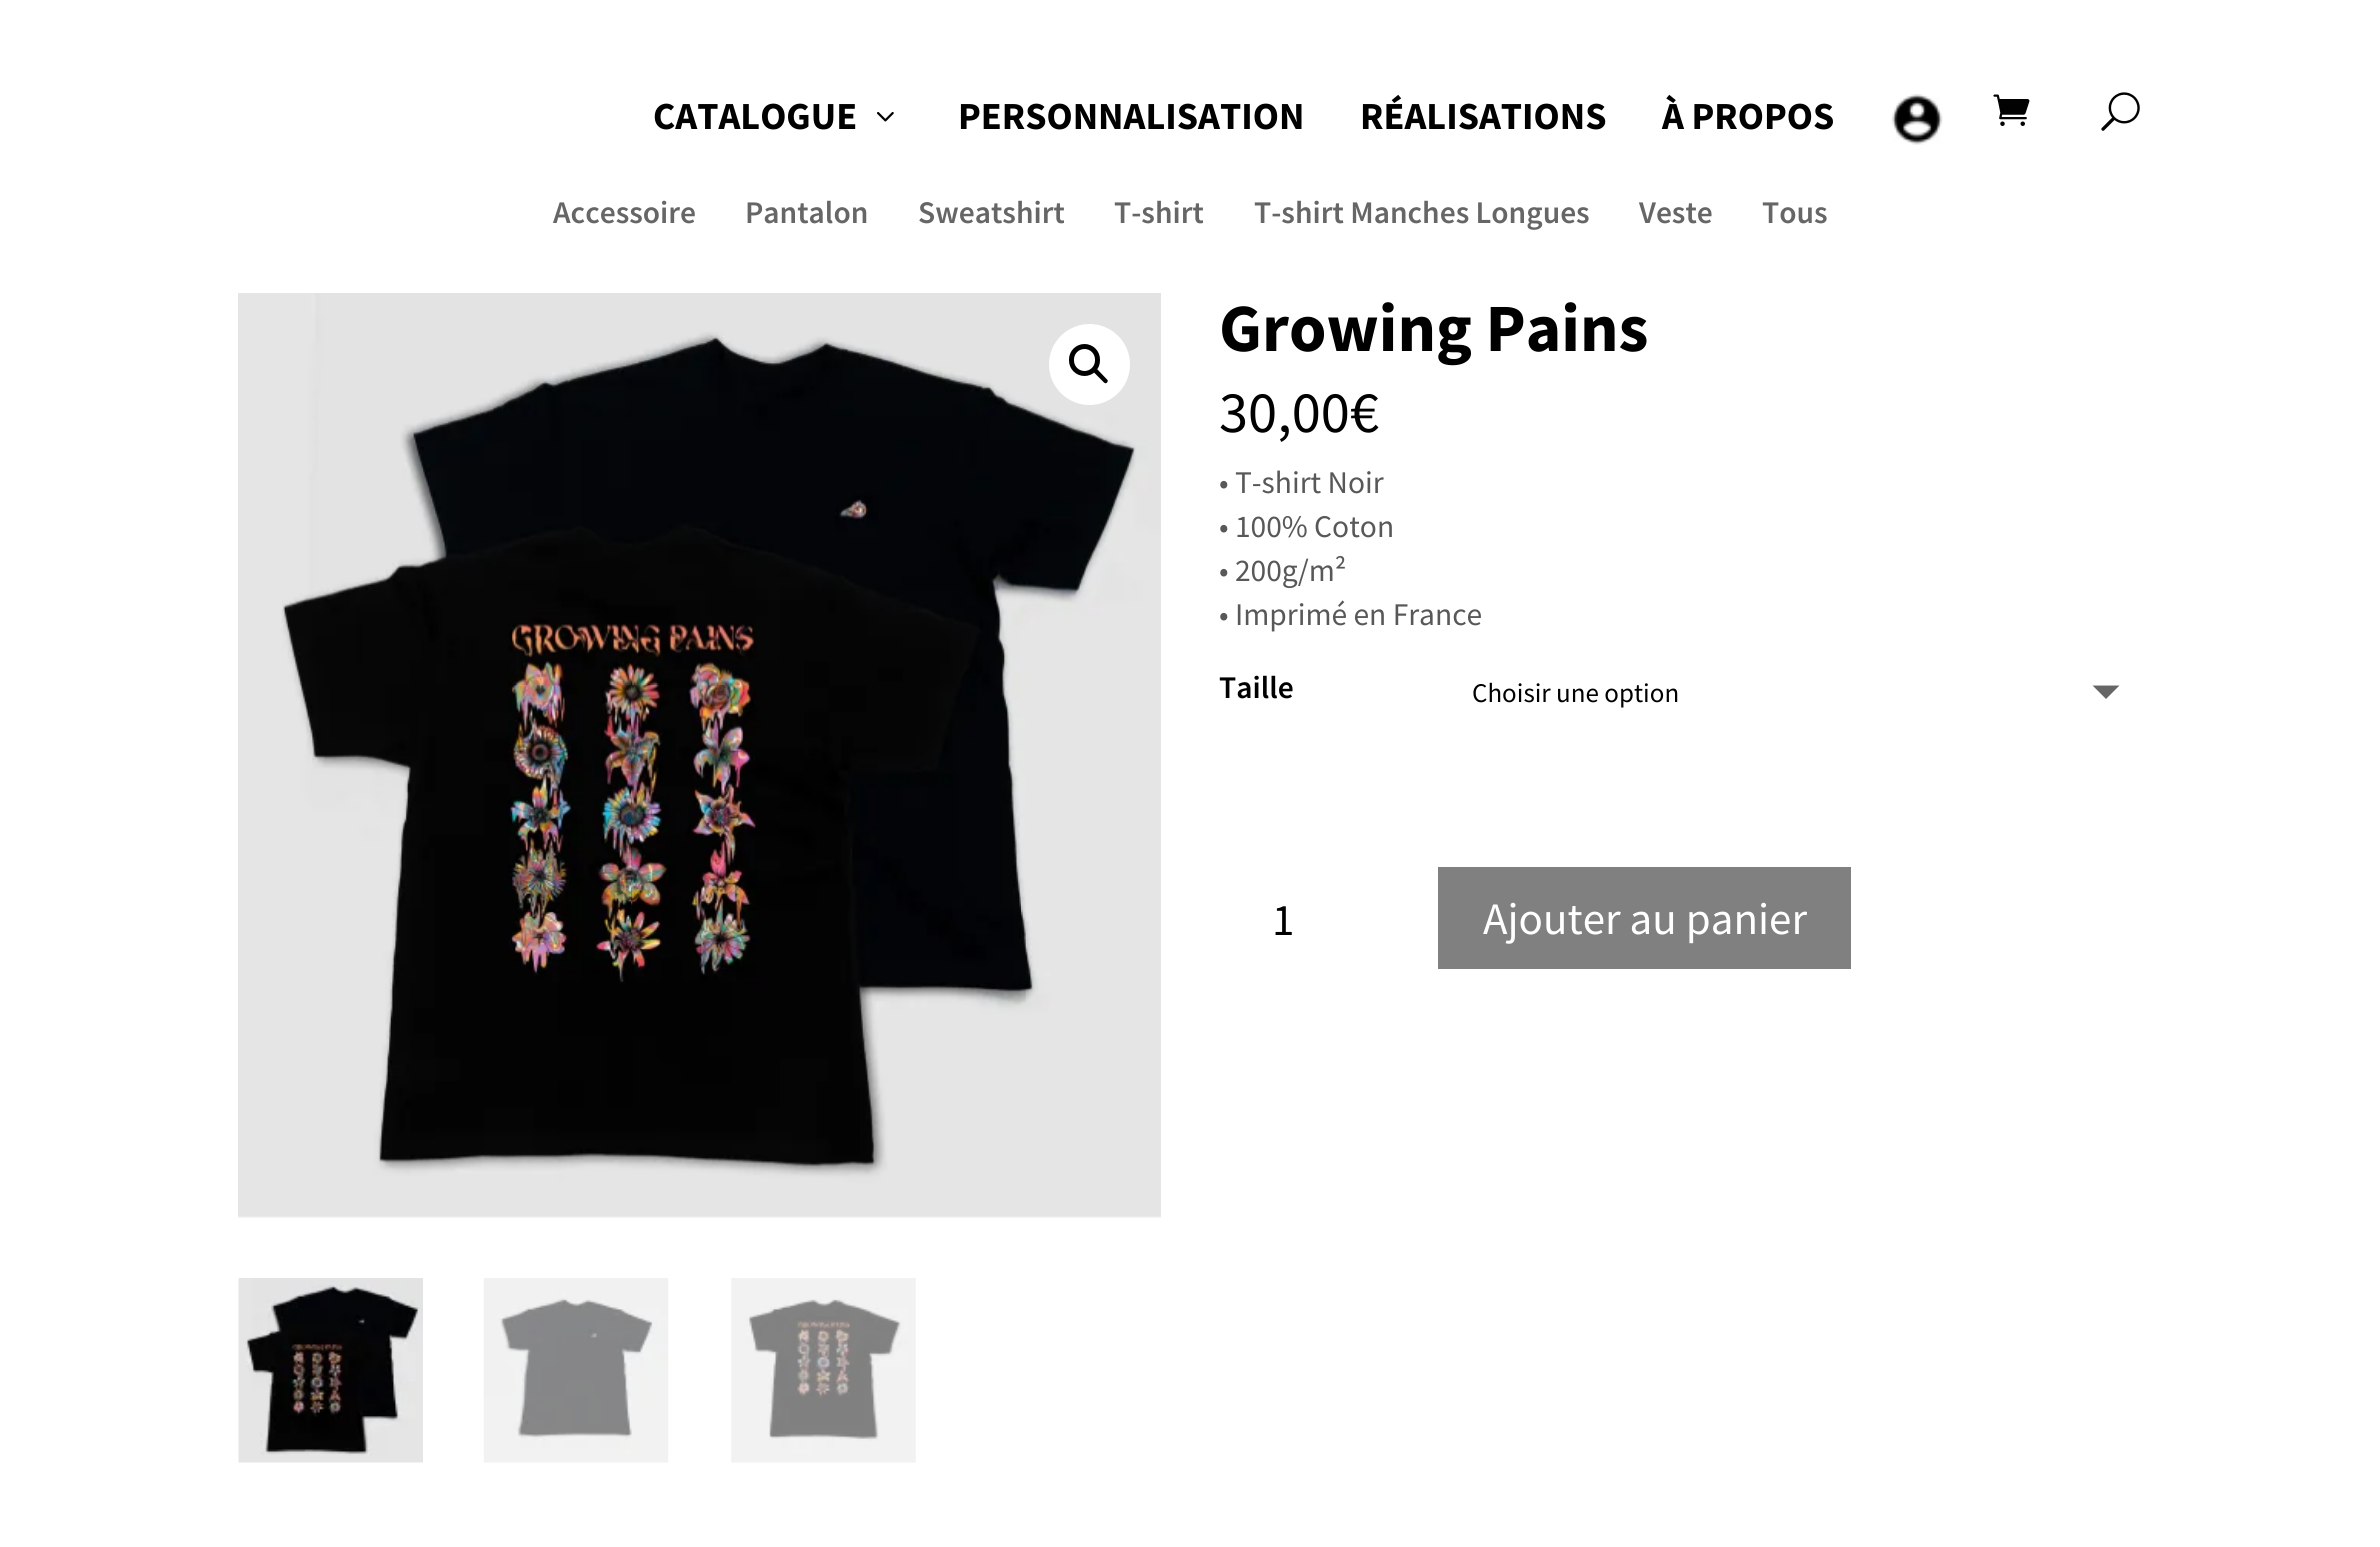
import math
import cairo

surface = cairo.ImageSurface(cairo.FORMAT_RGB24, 2380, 1547)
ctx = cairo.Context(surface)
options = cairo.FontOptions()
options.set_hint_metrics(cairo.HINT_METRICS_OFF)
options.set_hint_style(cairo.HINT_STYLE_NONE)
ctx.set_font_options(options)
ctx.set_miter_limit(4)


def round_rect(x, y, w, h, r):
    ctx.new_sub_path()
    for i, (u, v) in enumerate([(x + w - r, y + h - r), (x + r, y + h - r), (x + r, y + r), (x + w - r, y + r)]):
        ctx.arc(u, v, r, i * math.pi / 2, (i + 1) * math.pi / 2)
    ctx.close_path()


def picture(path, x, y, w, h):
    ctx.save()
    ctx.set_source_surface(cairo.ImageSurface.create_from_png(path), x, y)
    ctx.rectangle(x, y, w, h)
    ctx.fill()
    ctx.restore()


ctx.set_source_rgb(1, 1, 1)
ctx.paint()
ctx.select_font_face("Source Sans Pro", cairo.FONT_SLANT_NORMAL, cairo.FONT_WEIGHT_BOLD)
ctx.set_font_size(38.25)
ctx.set_source_rgb(0, 0, 0)
ctx.move_to(653, 129)
ctx.show_text("CATALOGUE")
picture("img1.png", 877, 112, 17, 10)
ctx.move_to(958, 129)
ctx.show_text("PERSONNALISATION")
ctx.move_to(1360, 129)
ctx.show_text("RÉALISATIONS")
ctx.move_to(1662, 129)
ctx.show_text("À PROPOS")
picture("img2.png", 1891, 94, 52, 51)
picture("img3.png", 1993, 94, 37, 32)
picture("img4.png", 2101, 92, 39, 39)
ctx.select_font_face("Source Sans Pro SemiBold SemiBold")
ctx.set_font_size(31.5)
ctx.set_source_rgb(0.4, 0.4, 0.4)
ctx.move_to(553, 223)
ctx.show_text("Accessoire")
ctx.move_to(745, 223)
ctx.show_text("Pantalon")
ctx.move_to(918, 223)
ctx.show_text("Sweatshirt")
ctx.move_to(1114, 223)
ctx.show_text("T-shirt")
ctx.move_to(1254, 223)
ctx.show_text("T-shirt Manches Longues")
ctx.move_to(1639, 223)
ctx.show_text("Veste")
ctx.move_to(1762, 223)
ctx.show_text("Tous")
picture("img5.png", 238, 293, 923, 925)
ctx.set_source_rgb(1, 1, 1)
ctx.arc(1089.5, 364.5, 40.5, 0, 2 * math.pi)
ctx.fill()
round_rect(1071.5, 346.5, 26, 27, 13)
ctx.set_source_rgb(0, 0, 0)
ctx.set_line_width(5)
ctx.stroke()
ctx.new_path()
ctx.move_to(1094.5, 369.5)
ctx.curve_to(1095.5, 369, 1097, 369, 1097.5, 369.5)
ctx.line_to(1107, 379.5)
ctx.curve_to(1108, 380, 1108, 381.5, 1107, 382.5)
ctx.curve_to(1106.5, 383.5, 1105, 383.5, 1104, 382.5)
ctx.line_to(1094.5, 373)
ctx.curve_to(1093.5, 372, 1093.5, 370.5, 1094.5, 369.5)
ctx.close_path()
ctx.fill()
picture("img6.png", 238, 1278, 185, 185)
picture("img7.png", 483, 1278, 186, 185)
picture("img8.png", 731, 1278, 185, 185)
ctx.select_font_face("Source Sans Pro", cairo.FONT_SLANT_NORMAL, cairo.FONT_WEIGHT_BOLD)
ctx.set_font_size(67.5)
ctx.move_to(1219, 351)
ctx.show_text("Growing Pains")
ctx.select_font_face("Source Sans Pro")
ctx.set_font_size(58.5)
ctx.move_to(1219, 432)
ctx.show_text("30,00€")
ctx.set_font_size(31.5)
ctx.set_source_rgb(0.345, 0.345, 0.345)
ctx.move_to(1219, 493)
ctx.show_text("• T-shirt Noir")
ctx.move_to(1219, 537)
ctx.show_text("• 100% Coton")
ctx.move_to(1219, 581)
ctx.show_text("• 200g/m²")
ctx.move_to(1219, 625)
ctx.show_text("• Imprimé en France")
ctx.select_font_face("Source Sans Pro SemiBold SemiBold")
ctx.set_source_rgb(0, 0, 0)
ctx.move_to(1219, 698)
ctx.show_text("Taille")
ctx.select_font_face("Source Sans Pro")
ctx.set_font_size(27)
ctx.move_to(1472, 702)
ctx.show_text("Choisir une option")
ctx.set_source_rgb(0.4, 0.4, 0.4)
ctx.new_path()
ctx.move_to(2092.5, 685.5)
ctx.line_to(2119.5, 685.5)
ctx.line_to(2106, 699)
ctx.close_path()
ctx.fill()
ctx.set_font_size(45)
ctx.set_source_rgb(0, 0, 0)
ctx.move_to(1272, 935)
ctx.show_text("1")
ctx.set_source_rgb(0.502, 0.502, 0.502)
ctx.rectangle(1438, 867, 413, 102)
ctx.fill()
ctx.set_source_rgb(1, 1, 1)
ctx.move_to(1483, 934)
ctx.show_text("Ajouter au panier")
surface.write_to_png("page.png")
